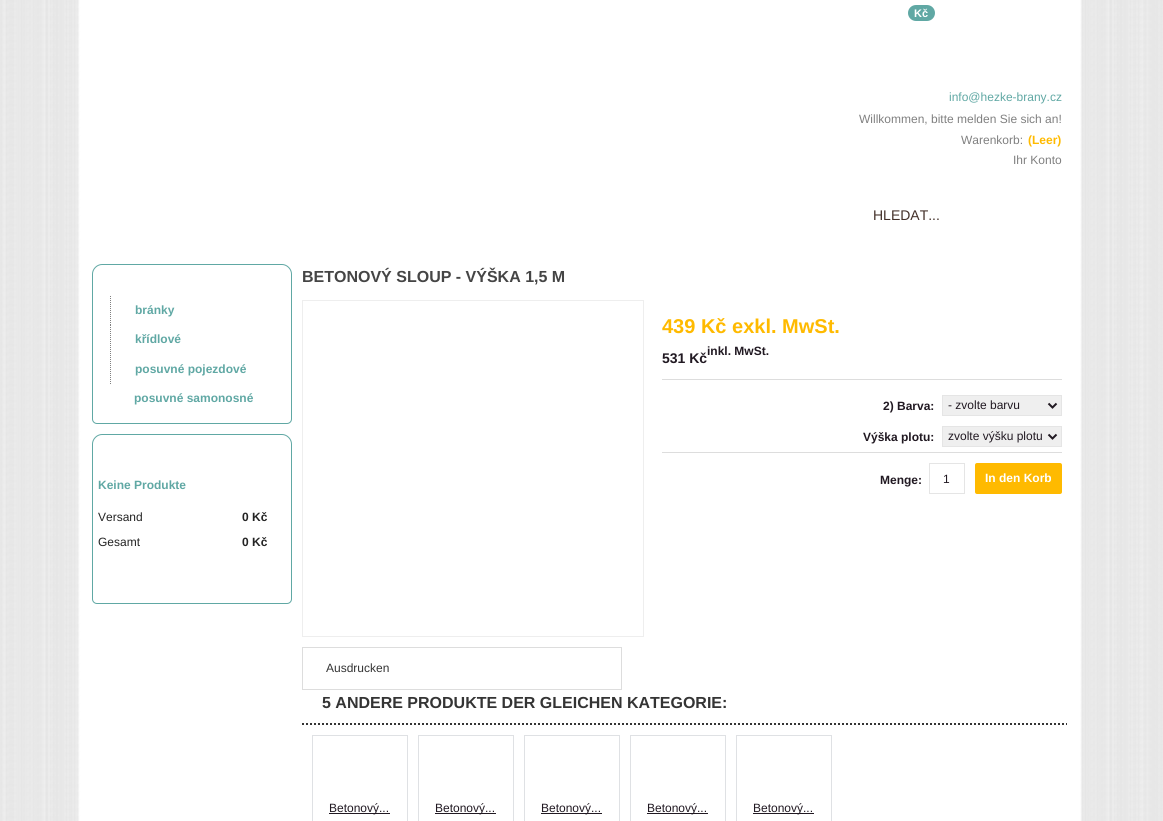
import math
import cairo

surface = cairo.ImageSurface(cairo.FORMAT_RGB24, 1163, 821)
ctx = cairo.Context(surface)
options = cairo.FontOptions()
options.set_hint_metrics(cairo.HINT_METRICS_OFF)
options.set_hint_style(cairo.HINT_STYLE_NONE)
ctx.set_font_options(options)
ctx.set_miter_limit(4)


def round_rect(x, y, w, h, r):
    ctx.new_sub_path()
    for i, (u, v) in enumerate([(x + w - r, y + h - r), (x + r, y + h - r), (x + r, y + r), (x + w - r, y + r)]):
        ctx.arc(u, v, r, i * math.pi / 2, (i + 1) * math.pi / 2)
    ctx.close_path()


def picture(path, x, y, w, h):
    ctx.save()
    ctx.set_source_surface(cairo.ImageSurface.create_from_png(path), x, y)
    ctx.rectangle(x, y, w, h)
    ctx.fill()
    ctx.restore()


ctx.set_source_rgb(1, 1, 1)
ctx.paint()
picture("img1.png", 0, 0, 1163, 821)
ctx.set_source_rgb(0.376, 0.659, 0.643)
round_rect(908, 5, 27, 16, 8)
ctx.fill()
ctx.select_font_face("Liberation Sans", cairo.FONT_SLANT_NORMAL, cairo.FONT_WEIGHT_BOLD)
ctx.set_font_size(11)
ctx.set_source_rgb(1, 1, 1)
ctx.move_to(914, 17)
ctx.show_text("Kč")
ctx.select_font_face("Liberation Sans")
ctx.set_font_size(12)
ctx.set_source_rgb(0.376, 0.659, 0.643)
ctx.move_to(949, 101)
ctx.show_text("info@hezke-brany.cz")
ctx.set_source_rgb(0.502, 0.502, 0.502)
ctx.move_to(859, 123)
ctx.show_text("Willkommen, bitte melden Sie sich an!")
ctx.move_to(961, 144)
ctx.show_text("Warenkorb:")
ctx.select_font_face("Liberation Sans", cairo.FONT_SLANT_NORMAL, cairo.FONT_WEIGHT_BOLD)
ctx.set_source_rgb(1, 0.729, 0)
ctx.move_to(1028, 144)
ctx.show_text("(Leer)")
ctx.select_font_face("Liberation Sans")
ctx.set_source_rgb(0.502, 0.502, 0.502)
ctx.move_to(1013, 164)
ctx.show_text("Ihr Konto")
ctx.set_font_size(14)
ctx.set_source_rgb(0.263, 0.188, 0.161)
ctx.move_to(873, 220)
ctx.show_text("HLEDAT...")
ctx.new_path()
ctx.move_to(102, 264.5)
ctx.line_to(282, 264.5)
ctx.curve_to(287, 264.5, 291.5, 269, 291.5, 274)
ctx.line_to(291.5, 419)
ctx.curve_to(291.5, 421.5, 289.5, 423.5, 287, 423.5)
ctx.line_to(97, 423.5)
ctx.curve_to(94.5, 423.5, 92.5, 421.5, 92.5, 419)
ctx.line_to(92.5, 274)
ctx.curve_to(92.5, 269, 97, 264.5, 102, 264.5)
ctx.close_path()
ctx.set_source_rgb(0.376, 0.659, 0.643)
ctx.set_line_width(1)
ctx.stroke()
ctx.new_path()
ctx.move_to(110.5, 296)
ctx.line_to(110.5, 325)
ctx.move_to(110.5, 325)
ctx.line_to(110.5, 355)
ctx.set_source_rgb(0.502, 0.502, 0.502)
ctx.set_dash([1, 1])
ctx.stroke()
ctx.select_font_face("Liberation Sans", cairo.FONT_SLANT_NORMAL, cairo.FONT_WEIGHT_BOLD)
ctx.set_font_size(12)
ctx.set_source_rgb(0.376, 0.659, 0.643)
ctx.move_to(135, 314)
ctx.show_text("bránky")
ctx.move_to(135, 343)
ctx.show_text("křídlové")
ctx.new_path()
ctx.move_to(110.5, 355)
ctx.line_to(110.5, 384)
ctx.set_source_rgb(0.502, 0.502, 0.502)
ctx.stroke()
ctx.set_source_rgb(0.376, 0.659, 0.643)
ctx.move_to(135, 373)
ctx.show_text("posuvné pojezdové")
ctx.move_to(134, 402)
ctx.show_text("posuvné samonosné")
ctx.new_path()
ctx.move_to(102, 434.5)
ctx.line_to(282, 434.5)
ctx.curve_to(287, 434.5, 291.5, 439, 291.5, 444)
ctx.line_to(291.5, 599)
ctx.curve_to(291.5, 601.5, 289.5, 603.5, 287, 603.5)
ctx.line_to(97, 603.5)
ctx.curve_to(94.5, 603.5, 92.5, 601.5, 92.5, 599)
ctx.line_to(92.5, 444)
ctx.curve_to(92.5, 439, 97, 434.5, 102, 434.5)
ctx.close_path()
ctx.set_dash([])
ctx.stroke()
ctx.move_to(98, 489)
ctx.show_text("Keine Produkte")
ctx.select_font_face("Liberation Sans")
ctx.set_source_rgb(0.141, 0.141, 0.141)
ctx.move_to(98, 521)
ctx.show_text("Versand")
ctx.select_font_face("Liberation Sans", cairo.FONT_SLANT_NORMAL, cairo.FONT_WEIGHT_BOLD)
ctx.move_to(242, 521)
ctx.show_text("0 Kč")
ctx.select_font_face("Liberation Sans")
ctx.move_to(98, 546)
ctx.show_text("Gesamt")
ctx.select_font_face("Liberation Sans", cairo.FONT_SLANT_NORMAL, cairo.FONT_WEIGHT_BOLD)
ctx.move_to(242, 546)
ctx.show_text("0 Kč")
ctx.set_font_size(16)
ctx.set_source_rgb(0.271, 0.271, 0.271)
ctx.move_to(302, 282)
ctx.show_text("BETONOVÝ SLOUP - VÝŠKA 1,5 M")
ctx.set_font_size(20)
ctx.set_source_rgb(1, 0.729, 0)
ctx.move_to(662, 333)
ctx.show_text("439 Kč exkl. MwSt.")
ctx.set_font_size(12)
ctx.set_source_rgb(0.129, 0.098, 0.133)
ctx.move_to(707, 355)
ctx.show_text("inkl. MwSt.")
ctx.set_font_size(14)
ctx.move_to(662, 363)
ctx.show_text("531 Kč")
ctx.set_source_rgb(0.867, 0.867, 0.867)
ctx.rectangle(662, 379, 400, 1)
ctx.fill()
ctx.rectangle(662, 452, 400, 1)
ctx.fill()
ctx.set_font_size(12)
ctx.set_source_rgb(0.129, 0.098, 0.133)
ctx.move_to(883, 410)
ctx.show_text("2) Barva:")
ctx.set_source_rgb(0.937, 0.937, 0.937)
ctx.rectangle(942.5, 395.5, 119, 20)
ctx.fill_preserve()
ctx.set_source_rgb(0.898, 0.898, 0.898)
ctx.stroke()
ctx.new_path()
ctx.move_to(1048.5, 403.5)
ctx.line_to(1052.5, 407.5)
ctx.line_to(1056.5, 403.5)
ctx.set_source_rgb(0.129, 0.098, 0.133)
ctx.set_line_width(2)
ctx.stroke()
ctx.select_font_face("Liberation Sans")
ctx.move_to(948, 409)
ctx.show_text("- zvolte barvu")
ctx.select_font_face("Liberation Sans", cairo.FONT_SLANT_NORMAL, cairo.FONT_WEIGHT_BOLD)
ctx.move_to(863, 441)
ctx.show_text("Výška plotu:")
ctx.set_source_rgb(0.937, 0.937, 0.937)
ctx.rectangle(942.5, 426.5, 119, 20)
ctx.fill_preserve()
ctx.set_source_rgb(0.898, 0.898, 0.898)
ctx.set_line_width(1)
ctx.stroke()
ctx.new_path()
ctx.move_to(1048.5, 434.5)
ctx.line_to(1052.5, 438.5)
ctx.line_to(1056.5, 434.5)
ctx.set_source_rgb(0.129, 0.098, 0.133)
ctx.set_line_width(2)
ctx.stroke()
ctx.select_font_face("Liberation Sans")
ctx.move_to(948, 440)
ctx.show_text("zvolte výšku plotu")
ctx.select_font_face("Liberation Sans", cairo.FONT_SLANT_NORMAL, cairo.FONT_WEIGHT_BOLD)
ctx.move_to(880, 484)
ctx.show_text("Menge:")
ctx.rectangle(929.5, 463.5, 35, 30)
ctx.set_source_rgb(0.898, 0.898, 0.898)
ctx.set_line_width(1)
ctx.stroke()
ctx.select_font_face("Liberation Sans")
ctx.set_source_rgb(0.129, 0.098, 0.133)
ctx.move_to(943, 483)
ctx.show_text("1")
ctx.set_source_rgb(1, 0.729, 0)
round_rect(975, 463, 87, 31, 2)
ctx.fill()
ctx.select_font_face("Liberation Sans", cairo.FONT_SLANT_NORMAL, cairo.FONT_WEIGHT_BOLD)
ctx.set_source_rgb(1, 1, 1)
ctx.move_to(985, 482)
ctx.show_text("In den Korb")
ctx.rectangle(302.5, 300.5, 341, 336)
ctx.set_source_rgb(0.933, 0.933, 0.933)
ctx.stroke()
ctx.rectangle(302.5, 647.5, 319, 42)
ctx.set_source_rgb(0.867, 0.867, 0.867)
ctx.stroke()
ctx.select_font_face("Liberation Sans")
ctx.set_source_rgb(0.204, 0.204, 0.204)
ctx.move_to(326, 672)
ctx.show_text("Ausdrucken")
ctx.save()
ctx.rectangle(302, 264, 765, 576)
ctx.clip()
ctx.new_path()
ctx.move_to(302, 724)
ctx.line_to(1087, 724)
ctx.set_line_width(2)
ctx.set_dash([2, 2])
ctx.stroke()
ctx.restore()
ctx.select_font_face("Liberation Sans", cairo.FONT_SLANT_NORMAL, cairo.FONT_WEIGHT_BOLD)
ctx.set_font_size(16)
ctx.move_to(322, 708)
ctx.show_text("5 ANDERE PRODUKTE DER GLEICHEN KATEGORIE:")
ctx.rectangle(312.5, 735.5, 95, 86)
ctx.set_source_rgb(0.875, 0.882, 0.894)
ctx.stroke()
ctx.set_source_rgb(0.129, 0.098, 0.133)
ctx.rectangle(329, 813, 61, 1)
ctx.fill()
ctx.select_font_face("Liberation Sans")
ctx.set_font_size(12)
ctx.move_to(329, 812)
ctx.show_text("Betonový...")
ctx.rectangle(418.5, 735.5, 95, 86)
ctx.set_source_rgb(0.875, 0.882, 0.894)
ctx.stroke()
ctx.set_source_rgb(0.129, 0.098, 0.133)
ctx.rectangle(435, 813, 61, 1)
ctx.fill()
ctx.move_to(435, 812)
ctx.show_text("Betonový...")
ctx.rectangle(524.5, 735.5, 95, 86)
ctx.set_source_rgb(0.875, 0.882, 0.894)
ctx.stroke()
ctx.set_source_rgb(0.129, 0.098, 0.133)
ctx.rectangle(541, 813, 61, 1)
ctx.fill()
ctx.move_to(541, 812)
ctx.show_text("Betonový...")
ctx.rectangle(630.5, 735.5, 95, 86)
ctx.set_source_rgb(0.875, 0.882, 0.894)
ctx.stroke()
ctx.set_source_rgb(0.129, 0.098, 0.133)
ctx.rectangle(647, 813, 61, 1)
ctx.fill()
ctx.move_to(647, 812)
ctx.show_text("Betonový...")
ctx.rectangle(736.5, 735.5, 95, 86)
ctx.set_source_rgb(0.875, 0.882, 0.894)
ctx.stroke()
ctx.set_source_rgb(0.129, 0.098, 0.133)
ctx.rectangle(753, 813, 61, 1)
ctx.fill()
ctx.move_to(753, 812)
ctx.show_text("Betonový...")
surface.write_to_png("page.png")
